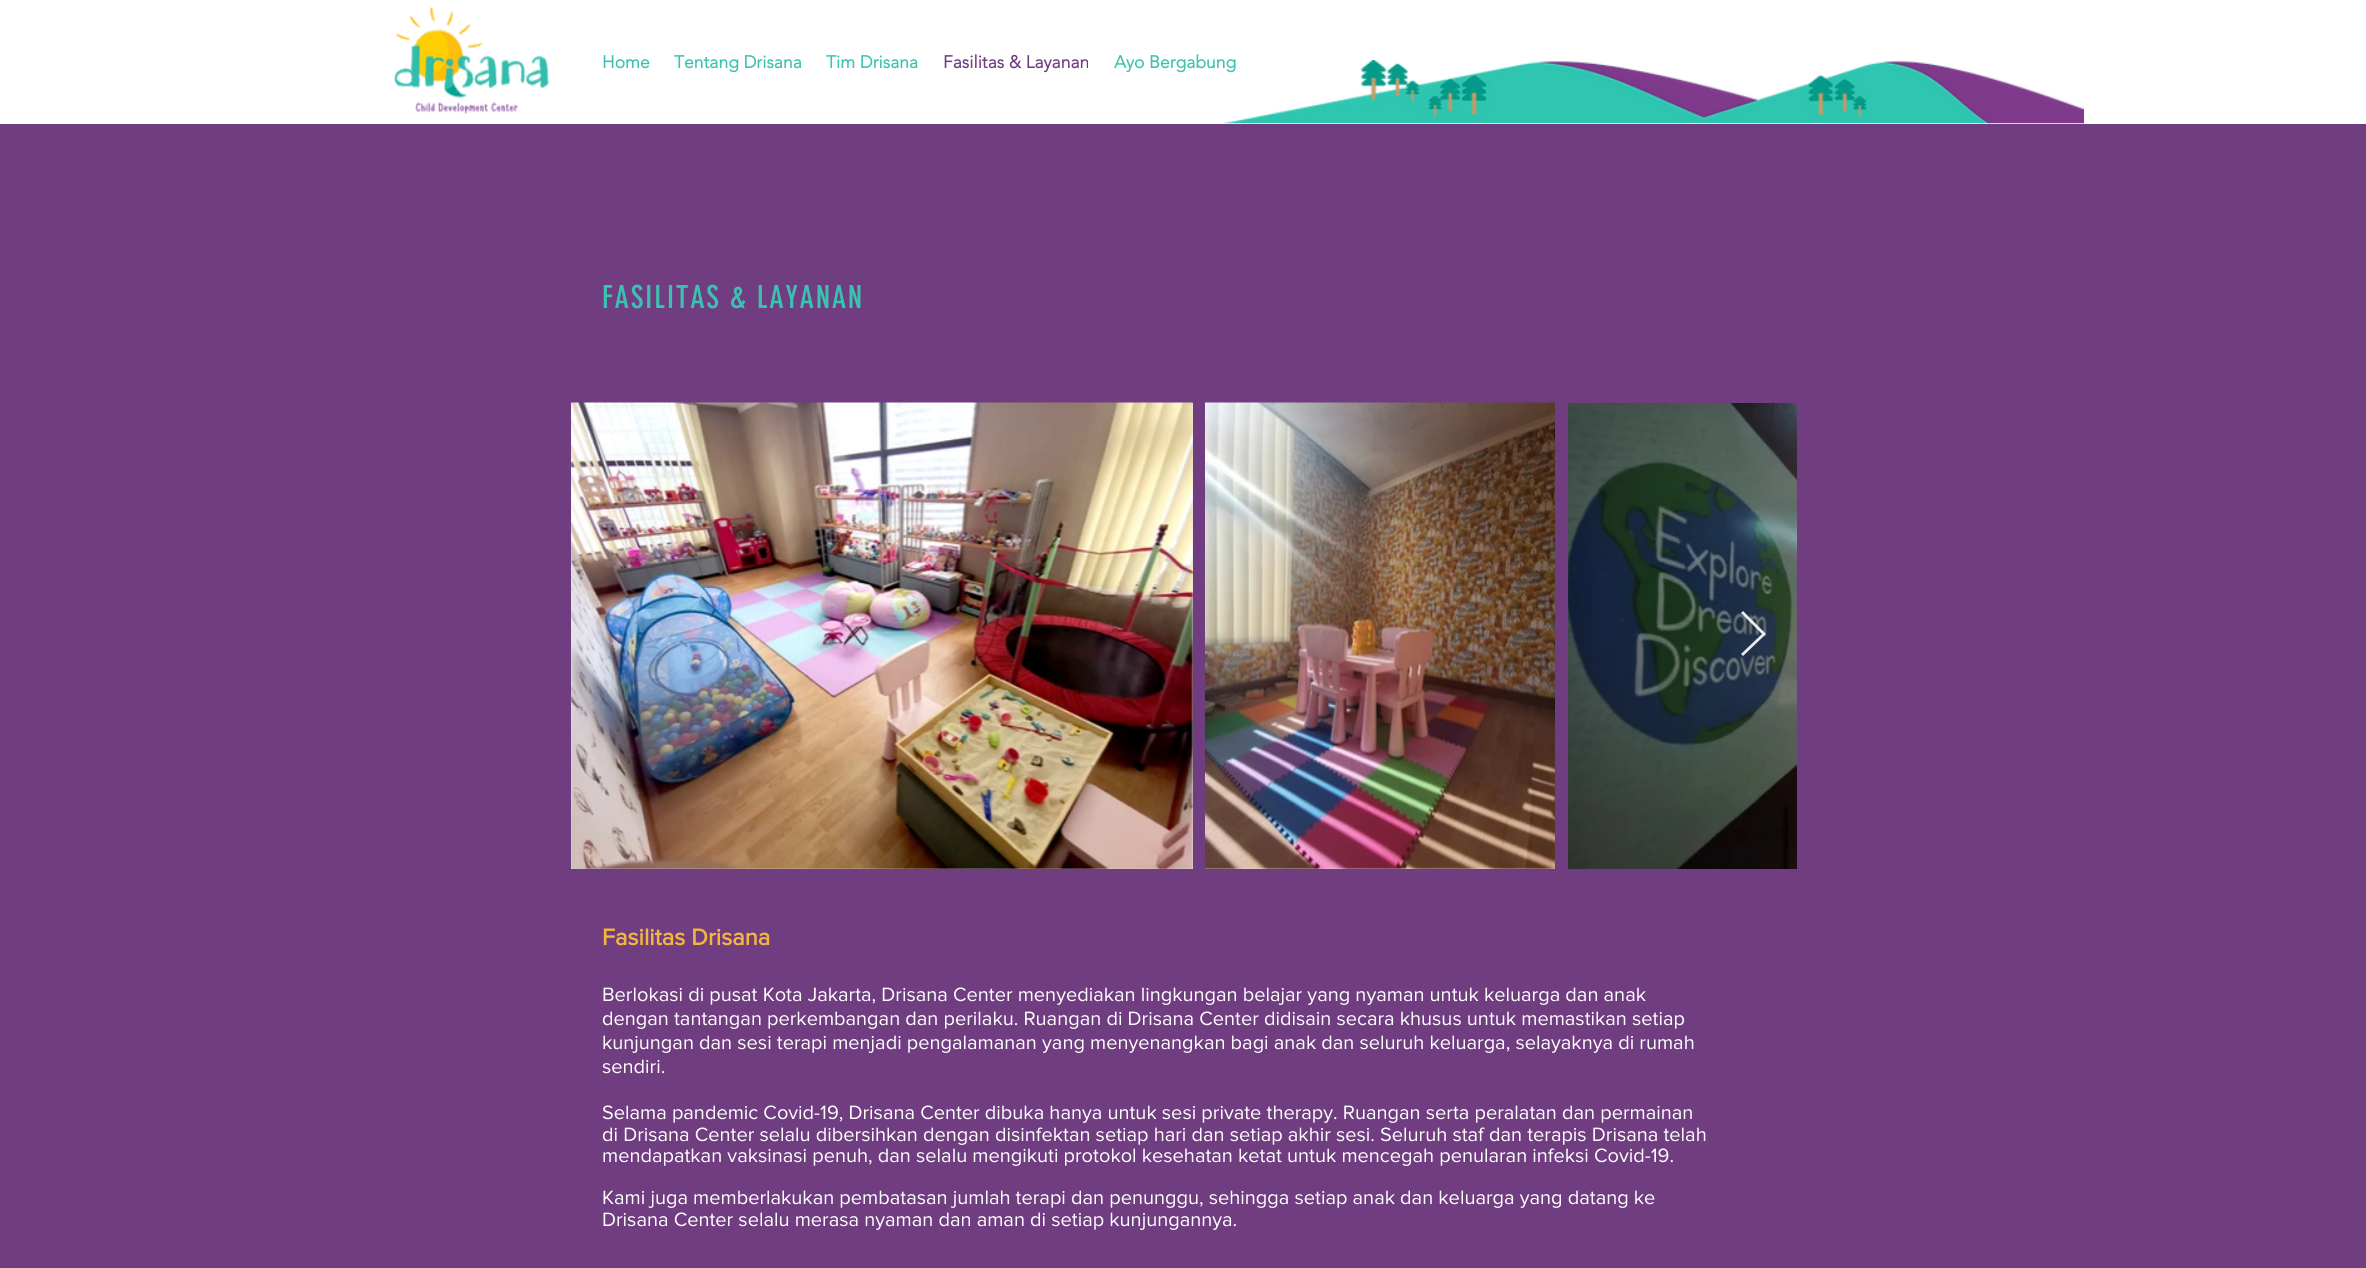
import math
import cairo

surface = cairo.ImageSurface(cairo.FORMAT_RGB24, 2366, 1268)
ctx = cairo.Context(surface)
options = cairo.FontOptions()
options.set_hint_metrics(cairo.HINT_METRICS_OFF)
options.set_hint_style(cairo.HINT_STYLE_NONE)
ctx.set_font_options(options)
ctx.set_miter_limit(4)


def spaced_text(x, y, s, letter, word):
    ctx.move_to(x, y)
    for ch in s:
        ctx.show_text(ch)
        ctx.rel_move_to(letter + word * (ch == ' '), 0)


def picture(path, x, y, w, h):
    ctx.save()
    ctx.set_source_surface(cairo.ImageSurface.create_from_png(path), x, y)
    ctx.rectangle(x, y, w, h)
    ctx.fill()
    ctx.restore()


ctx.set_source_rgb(0.443, 0.239, 0.506)
ctx.paint()
ctx.set_source_rgb(1, 1, 1)
ctx.rectangle(0, 0, 2366, 124)
ctx.fill()
picture("img1.png", 393, 6, 156, 109)
ctx.select_font_face("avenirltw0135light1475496", cairo.FONT_SLANT_NORMAL, cairo.FONT_WEIGHT_BOLD)
ctx.set_font_size(17.5)
ctx.set_source_rgb(0.227, 0.761, 0.69)
ctx.move_to(602, 68)
ctx.show_text("Home")
ctx.move_to(674, 68)
ctx.show_text("Tentang Drisana")
ctx.move_to(826, 68)
ctx.show_text("Tim Drisana")
ctx.set_source_rgb(0.443, 0.239, 0.506)
ctx.move_to(943, 68)
ctx.show_text("Fasilitas & Layanan")
picture("img2.png", 1224, 60, 860, 64)
ctx.set_source_rgb(0.227, 0.761, 0.69)
ctx.move_to(1114, 68)
ctx.show_text("Ayo Bergabung")
ctx.select_font_face("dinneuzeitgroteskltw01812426")
ctx.set_font_size(31.25)
spaced_text(602, 308, "FASILITAS & LAYANAN", 1.6, 0)
ctx.set_source_rgb(0.91, 0.902, 0.902)
ctx.rectangle(571, 403, 622, 466)
ctx.fill()
picture("img3.png", 571, 402, 622, 467)
ctx.rectangle(1205, 867, 350, 2)
ctx.fill()
picture("img4.png", 1205, 402, 350, 467)
picture("img5.png", 1568, 403, 229, 466)
ctx.set_source_rgba(1, 1, 1, 0.9)
ctx.new_path()
ctx.move_to(1741, 613)
ctx.line_to(1743, 611)
ctx.line_to(1766, 634)
ctx.line_to(1743, 656)
ctx.line_to(1741, 654)
ctx.line_to(1762, 634)
ctx.close_path()
ctx.fill()
ctx.select_font_face("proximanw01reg", cairo.FONT_SLANT_NORMAL, cairo.FONT_WEIGHT_BOLD)
ctx.set_font_size(23.75)
ctx.set_source_rgb(0.953, 0.718, 0.231)
ctx.move_to(602, 945)
ctx.show_text("Fasilitas Drisana")
ctx.select_font_face("proximanw01reg")
ctx.set_font_size(20)
ctx.set_source_rgb(1, 1, 1)
ctx.move_to(602, 1001)
ctx.show_text("Berlokasi di pusat Kota Jakarta, Drisana Center menyediakan lingkungan belajar yang nyaman untuk keluarga dan anak")
ctx.move_to(602, 1025)
ctx.show_text("dengan tantangan perkembangan dan perilaku. Ruangan di Drisana Center didisain secara khusus untuk memastikan setiap")
ctx.move_to(602, 1049)
ctx.show_text("kunjungan dan sesi terapi menjadi pengalamanan yang menyenangkan bagi anak dan seluruh keluarga, selayaknya di rumah")
ctx.move_to(602, 1073)
ctx.show_text("sendiri.")
ctx.move_to(602, 1119)
ctx.show_text("Selama pandemic Covid-19, Drisana Center dibuka hanya untuk sesi private therapy. Ruangan serta peralatan dan permainan")
ctx.move_to(602, 1141)
ctx.show_text("di Drisana Center selalu dibersihkan dengan disinfektan setiap hari dan setiap akhir sesi. Seluruh staf dan terapis Drisana telah")
ctx.move_to(602, 1162)
ctx.show_text("mendapatkan vaksinasi penuh, dan selalu mengikuti protokol kesehatan ketat untuk mencegah penularan infeksi Covid-19.")
ctx.move_to(602, 1204)
ctx.show_text("Kami juga memberlakukan pembatasan jumlah terapi dan penunggu, sehingga setiap anak dan keluarga yang datang ke")
ctx.move_to(602, 1226)
ctx.show_text("Drisana Center selalu merasa nyaman dan aman di setiap kunjungannya.")
surface.write_to_png("page.png")
